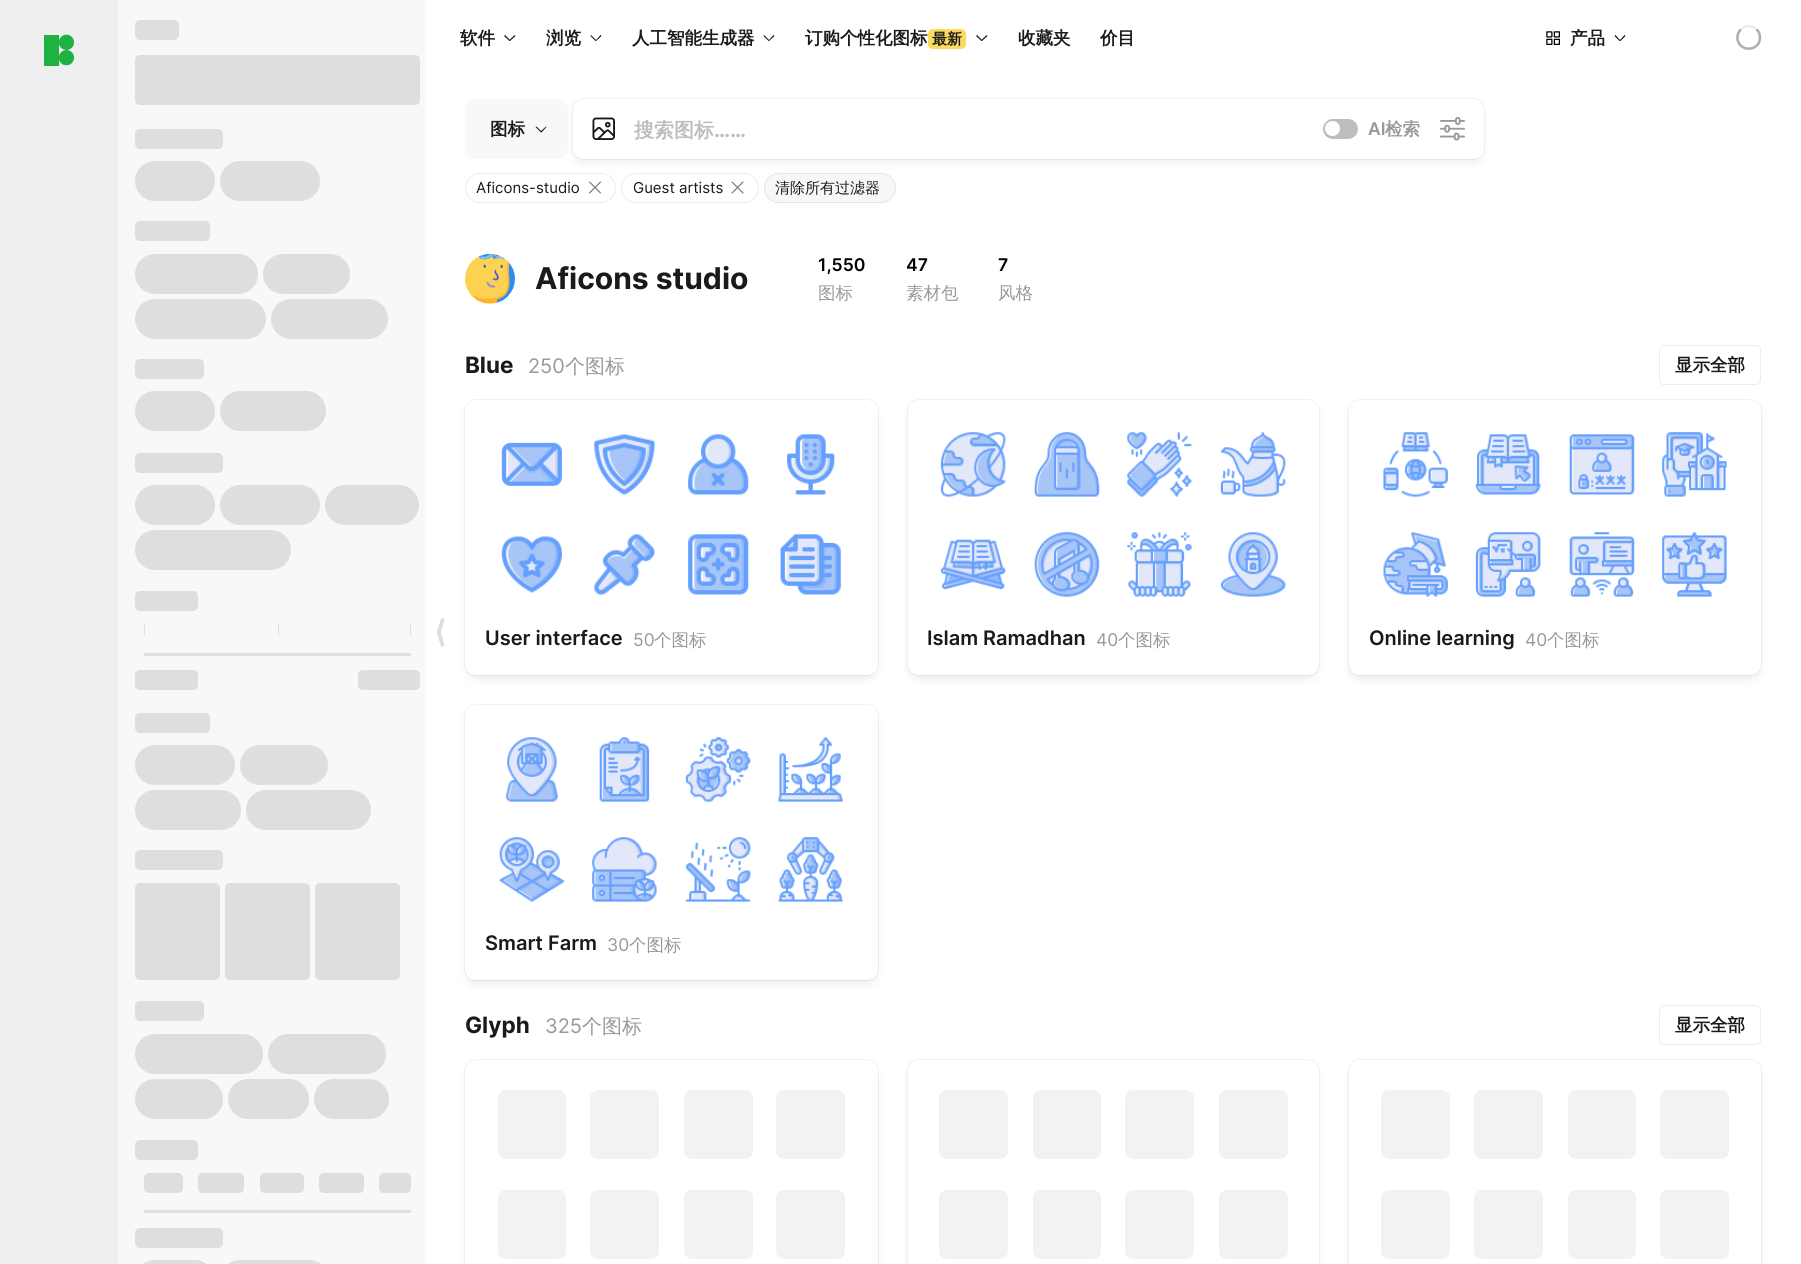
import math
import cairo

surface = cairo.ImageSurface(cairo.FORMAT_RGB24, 1801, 1264)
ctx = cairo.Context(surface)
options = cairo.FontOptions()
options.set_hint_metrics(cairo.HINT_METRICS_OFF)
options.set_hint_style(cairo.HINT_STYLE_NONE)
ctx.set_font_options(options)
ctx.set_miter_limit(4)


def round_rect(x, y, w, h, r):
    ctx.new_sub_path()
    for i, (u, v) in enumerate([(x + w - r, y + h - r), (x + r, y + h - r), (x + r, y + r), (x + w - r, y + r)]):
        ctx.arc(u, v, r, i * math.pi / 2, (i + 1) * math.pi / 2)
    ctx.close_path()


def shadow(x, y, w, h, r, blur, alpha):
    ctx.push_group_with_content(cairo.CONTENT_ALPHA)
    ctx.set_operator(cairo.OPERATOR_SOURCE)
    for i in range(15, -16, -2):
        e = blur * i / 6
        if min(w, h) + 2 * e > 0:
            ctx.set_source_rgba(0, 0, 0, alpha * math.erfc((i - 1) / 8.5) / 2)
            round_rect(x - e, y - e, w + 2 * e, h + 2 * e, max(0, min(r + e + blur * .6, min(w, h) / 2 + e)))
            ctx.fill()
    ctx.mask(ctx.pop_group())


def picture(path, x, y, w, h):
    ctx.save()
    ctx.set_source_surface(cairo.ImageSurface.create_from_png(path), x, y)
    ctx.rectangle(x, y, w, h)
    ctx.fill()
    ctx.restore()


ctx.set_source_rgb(1, 1, 1)
ctx.paint()
ctx.set_source_rgb(0.937, 0.937, 0.937)
ctx.rectangle(0, 0, 118, 1264)
ctx.fill()
picture("img1.png", 44, 34, 31, 32)
ctx.set_source_rgb(0.969, 0.969, 0.969)
ctx.rectangle(118, 0, 307, 1264)
ctx.fill()
gradient = cairo.LinearGradient(-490, 85, 760, 85)
gradient.add_color_stop_rgba(0.1, 0.871, 0.871, 0.871, 1)
gradient.add_color_stop_rgba(0.18, 0.922, 0.922, 0.922, 1)
gradient.add_color_stop_rgba(0.33, 0.871, 0.871, 0.871, 1)
ctx.set_source(gradient)
round_rect(135, 20, 44, 20, 5)
ctx.fill()
gradient = cairo.LinearGradient(-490, 120, 760, 120)
gradient.add_color_stop_rgba(0.1, 0.871, 0.871, 0.871, 1)
gradient.add_color_stop_rgba(0.18, 0.922, 0.922, 0.922, 1)
gradient.add_color_stop_rgba(0.33, 0.871, 0.871, 0.871, 1)
ctx.set_source(gradient)
round_rect(135, 55, 285, 50, 5)
ctx.fill()
gradient = cairo.LinearGradient(-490, 194, 760, 194)
gradient.add_color_stop_rgba(0.1, 0.871, 0.871, 0.871, 1)
gradient.add_color_stop_rgba(0.18, 0.922, 0.922, 0.922, 1)
gradient.add_color_stop_rgba(0.33, 0.871, 0.871, 0.871, 1)
ctx.set_source(gradient)
round_rect(135, 129, 88, 20, 5)
ctx.fill()
gradient = cairo.LinearGradient(-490, 226, 760, 226)
gradient.add_color_stop_rgba(0.1, 0.871, 0.871, 0.871, 1)
gradient.add_color_stop_rgba(0.18, 0.922, 0.922, 0.922, 1)
gradient.add_color_stop_rgba(0.33, 0.871, 0.871, 0.871, 1)
ctx.set_source(gradient)
round_rect(135, 161, 80, 40, 20)
ctx.fill()
gradient = cairo.LinearGradient(-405, 226, 845, 226)
gradient.add_color_stop_rgba(0.1, 0.871, 0.871, 0.871, 1)
gradient.add_color_stop_rgba(0.18, 0.922, 0.922, 0.922, 1)
gradient.add_color_stop_rgba(0.33, 0.871, 0.871, 0.871, 1)
ctx.set_source(gradient)
round_rect(220, 161, 100, 40, 20)
ctx.fill()
gradient = cairo.LinearGradient(-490, 286, 760, 286)
gradient.add_color_stop_rgba(0.1, 0.871, 0.871, 0.871, 1)
gradient.add_color_stop_rgba(0.18, 0.922, 0.922, 0.922, 1)
gradient.add_color_stop_rgba(0.33, 0.871, 0.871, 0.871, 1)
ctx.set_source(gradient)
round_rect(135, 221, 75, 20, 5)
ctx.fill()
gradient = cairo.LinearGradient(-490, 319, 760, 319)
gradient.add_color_stop_rgba(0.1, 0.871, 0.871, 0.871, 1)
gradient.add_color_stop_rgba(0.18, 0.922, 0.922, 0.922, 1)
gradient.add_color_stop_rgba(0.33, 0.871, 0.871, 0.871, 1)
ctx.set_source(gradient)
round_rect(135, 254, 123, 40, 20)
ctx.fill()
gradient = cairo.LinearGradient(-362, 319, 888, 319)
gradient.add_color_stop_rgba(0.1, 0.871, 0.871, 0.871, 1)
gradient.add_color_stop_rgba(0.18, 0.922, 0.922, 0.922, 1)
gradient.add_color_stop_rgba(0.33, 0.871, 0.871, 0.871, 1)
ctx.set_source(gradient)
round_rect(263, 254, 87, 40, 20)
ctx.fill()
gradient = cairo.LinearGradient(-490, 364, 760, 364)
gradient.add_color_stop_rgba(0.1, 0.871, 0.871, 0.871, 1)
gradient.add_color_stop_rgba(0.18, 0.922, 0.922, 0.922, 1)
gradient.add_color_stop_rgba(0.33, 0.871, 0.871, 0.871, 1)
ctx.set_source(gradient)
round_rect(135, 299, 131, 40, 20)
ctx.fill()
gradient = cairo.LinearGradient(-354, 364, 896, 364)
gradient.add_color_stop_rgba(0.1, 0.871, 0.871, 0.871, 1)
gradient.add_color_stop_rgba(0.18, 0.922, 0.922, 0.922, 1)
gradient.add_color_stop_rgba(0.33, 0.871, 0.871, 0.871, 1)
ctx.set_source(gradient)
round_rect(271, 299, 117, 40, 20)
ctx.fill()
gradient = cairo.LinearGradient(-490, 424, 760, 424)
gradient.add_color_stop_rgba(0.1, 0.871, 0.871, 0.871, 1)
gradient.add_color_stop_rgba(0.18, 0.922, 0.922, 0.922, 1)
gradient.add_color_stop_rgba(0.33, 0.871, 0.871, 0.871, 1)
ctx.set_source(gradient)
round_rect(135, 359, 69, 20, 5)
ctx.fill()
gradient = cairo.LinearGradient(-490, 456, 760, 456)
gradient.add_color_stop_rgba(0.1, 0.871, 0.871, 0.871, 1)
gradient.add_color_stop_rgba(0.18, 0.922, 0.922, 0.922, 1)
gradient.add_color_stop_rgba(0.33, 0.871, 0.871, 0.871, 1)
ctx.set_source(gradient)
round_rect(135, 391, 80, 40, 20)
ctx.fill()
gradient = cairo.LinearGradient(-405, 456, 845, 456)
gradient.add_color_stop_rgba(0.1, 0.871, 0.871, 0.871, 1)
gradient.add_color_stop_rgba(0.18, 0.922, 0.922, 0.922, 1)
gradient.add_color_stop_rgba(0.33, 0.871, 0.871, 0.871, 1)
ctx.set_source(gradient)
round_rect(220, 391, 106, 40, 20)
ctx.fill()
gradient = cairo.LinearGradient(-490, 518, 760, 517)
gradient.add_color_stop_rgba(0.1, 0.871, 0.871, 0.871, 1)
gradient.add_color_stop_rgba(0.18, 0.922, 0.922, 0.922, 1)
gradient.add_color_stop_rgba(0.33, 0.871, 0.871, 0.871, 1)
ctx.set_source(gradient)
round_rect(135, 453, 88, 20, 5)
ctx.fill()
gradient = cairo.LinearGradient(-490, 550, 760, 550)
gradient.add_color_stop_rgba(0.1, 0.871, 0.871, 0.871, 1)
gradient.add_color_stop_rgba(0.18, 0.922, 0.922, 0.922, 1)
gradient.add_color_stop_rgba(0.33, 0.871, 0.871, 0.871, 1)
ctx.set_source(gradient)
round_rect(135, 485, 80, 40, 20)
ctx.fill()
gradient = cairo.LinearGradient(-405, 550, 845, 550)
gradient.add_color_stop_rgba(0.1, 0.871, 0.871, 0.871, 1)
gradient.add_color_stop_rgba(0.18, 0.922, 0.922, 0.922, 1)
gradient.add_color_stop_rgba(0.33, 0.871, 0.871, 0.871, 1)
ctx.set_source(gradient)
round_rect(220, 485, 100, 40, 20)
ctx.fill()
gradient = cairo.LinearGradient(-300, 550, 950, 550)
gradient.add_color_stop_rgba(0.1, 0.871, 0.871, 0.871, 1)
gradient.add_color_stop_rgba(0.18, 0.922, 0.922, 0.922, 1)
gradient.add_color_stop_rgba(0.33, 0.871, 0.871, 0.871, 1)
ctx.set_source(gradient)
round_rect(325, 485, 94, 40, 20)
ctx.fill()
gradient = cairo.LinearGradient(-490, 595, 760, 595)
gradient.add_color_stop_rgba(0.1, 0.871, 0.871, 0.871, 1)
gradient.add_color_stop_rgba(0.18, 0.922, 0.922, 0.922, 1)
gradient.add_color_stop_rgba(0.33, 0.871, 0.871, 0.871, 1)
ctx.set_source(gradient)
round_rect(135, 530, 156, 40, 20)
ctx.fill()
gradient = cairo.LinearGradient(-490, 656, 760, 656)
gradient.add_color_stop_rgba(0.1, 0.871, 0.871, 0.871, 1)
gradient.add_color_stop_rgba(0.18, 0.922, 0.922, 0.922, 1)
gradient.add_color_stop_rgba(0.33, 0.871, 0.871, 0.871, 1)
ctx.set_source(gradient)
round_rect(135, 591, 63, 20, 5)
ctx.fill()
gradient = cairo.LinearGradient(-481, 689, 769, 689)
gradient.add_color_stop_rgba(0.1, 0.871, 0.871, 0.871, 1)
gradient.add_color_stop_rgba(0.18, 0.922, 0.922, 0.922, 1)
gradient.add_color_stop_rgba(0.33, 0.871, 0.871, 0.871, 1)
ctx.set_source(gradient)
round_rect(144, 624, 1, 11, 0.5)
ctx.fill()
gradient = cairo.LinearGradient(-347, 689, 903, 689)
gradient.add_color_stop_rgba(0.1, 0.871, 0.871, 0.871, 1)
gradient.add_color_stop_rgba(0.18, 0.922, 0.922, 0.922, 1)
gradient.add_color_stop_rgba(0.33, 0.871, 0.871, 0.871, 1)
ctx.set_source(gradient)
round_rect(278, 624, 1, 11, 0.5)
ctx.fill()
gradient = cairo.LinearGradient(-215, 689, 1035, 689)
gradient.add_color_stop_rgba(0.1, 0.871, 0.871, 0.871, 1)
gradient.add_color_stop_rgba(0.18, 0.922, 0.922, 0.922, 1)
gradient.add_color_stop_rgba(0.33, 0.871, 0.871, 0.871, 1)
ctx.set_source(gradient)
round_rect(410, 624, 1, 11, 0.5)
ctx.fill()
gradient = cairo.LinearGradient(-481, 718, 769, 718)
gradient.add_color_stop_rgba(0.1, 0.871, 0.871, 0.871, 1)
gradient.add_color_stop_rgba(0.18, 0.922, 0.922, 0.922, 1)
gradient.add_color_stop_rgba(0.33, 0.871, 0.871, 0.871, 1)
ctx.set_source(gradient)
round_rect(144, 653, 267, 3, 1.5)
ctx.fill()
gradient = cairo.LinearGradient(-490, 735, 760, 735)
gradient.add_color_stop_rgba(0.1, 0.871, 0.871, 0.871, 1)
gradient.add_color_stop_rgba(0.18, 0.922, 0.922, 0.922, 1)
gradient.add_color_stop_rgba(0.33, 0.871, 0.871, 0.871, 1)
ctx.set_source(gradient)
round_rect(135, 670, 63, 20, 5)
ctx.fill()
gradient = cairo.LinearGradient(-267, 735, 983, 735)
gradient.add_color_stop_rgba(0.1, 0.871, 0.871, 0.871, 1)
gradient.add_color_stop_rgba(0.18, 0.922, 0.922, 0.922, 1)
gradient.add_color_stop_rgba(0.33, 0.871, 0.871, 0.871, 1)
ctx.set_source(gradient)
round_rect(358, 670, 62, 20, 5)
ctx.fill()
gradient = cairo.LinearGradient(-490, 778, 760, 778)
gradient.add_color_stop_rgba(0.1, 0.871, 0.871, 0.871, 1)
gradient.add_color_stop_rgba(0.18, 0.922, 0.922, 0.922, 1)
gradient.add_color_stop_rgba(0.33, 0.871, 0.871, 0.871, 1)
ctx.set_source(gradient)
round_rect(135, 713, 75, 20, 5)
ctx.fill()
gradient = cairo.LinearGradient(-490, 810, 760, 810)
gradient.add_color_stop_rgba(0.1, 0.871, 0.871, 0.871, 1)
gradient.add_color_stop_rgba(0.18, 0.922, 0.922, 0.922, 1)
gradient.add_color_stop_rgba(0.33, 0.871, 0.871, 0.871, 1)
ctx.set_source(gradient)
round_rect(135, 745, 100, 40, 20)
ctx.fill()
gradient = cairo.LinearGradient(-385, 810, 865, 810)
gradient.add_color_stop_rgba(0.1, 0.871, 0.871, 0.871, 1)
gradient.add_color_stop_rgba(0.18, 0.922, 0.922, 0.922, 1)
gradient.add_color_stop_rgba(0.33, 0.871, 0.871, 0.871, 1)
ctx.set_source(gradient)
round_rect(240, 745, 88, 40, 20)
ctx.fill()
gradient = cairo.LinearGradient(-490, 855, 760, 855)
gradient.add_color_stop_rgba(0.1, 0.871, 0.871, 0.871, 1)
gradient.add_color_stop_rgba(0.18, 0.922, 0.922, 0.922, 1)
gradient.add_color_stop_rgba(0.33, 0.871, 0.871, 0.871, 1)
ctx.set_source(gradient)
round_rect(135, 790, 106, 40, 20)
ctx.fill()
gradient = cairo.LinearGradient(-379, 855, 871, 855)
gradient.add_color_stop_rgba(0.1, 0.871, 0.871, 0.871, 1)
gradient.add_color_stop_rgba(0.18, 0.922, 0.922, 0.922, 1)
gradient.add_color_stop_rgba(0.33, 0.871, 0.871, 0.871, 1)
ctx.set_source(gradient)
round_rect(246, 790, 125, 40, 20)
ctx.fill()
gradient = cairo.LinearGradient(-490, 915, 760, 915)
gradient.add_color_stop_rgba(0.1, 0.871, 0.871, 0.871, 1)
gradient.add_color_stop_rgba(0.18, 0.922, 0.922, 0.922, 1)
gradient.add_color_stop_rgba(0.33, 0.871, 0.871, 0.871, 1)
ctx.set_source(gradient)
round_rect(135, 850, 88, 20, 5)
ctx.fill()
gradient = cairo.LinearGradient(-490, 948, 760, 948)
gradient.add_color_stop_rgba(0.1, 0.871, 0.871, 0.871, 1)
gradient.add_color_stop_rgba(0.18, 0.922, 0.922, 0.922, 1)
gradient.add_color_stop_rgba(0.33, 0.871, 0.871, 0.871, 1)
ctx.set_source(gradient)
round_rect(135, 883, 85, 97, 5)
ctx.fill()
gradient = cairo.LinearGradient(-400, 948, 850, 948)
gradient.add_color_stop_rgba(0.1, 0.871, 0.871, 0.871, 1)
gradient.add_color_stop_rgba(0.18, 0.922, 0.922, 0.922, 1)
gradient.add_color_stop_rgba(0.33, 0.871, 0.871, 0.871, 1)
ctx.set_source(gradient)
round_rect(225, 883, 85, 97, 5)
ctx.fill()
gradient = cairo.LinearGradient(-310, 948, 940, 948)
gradient.add_color_stop_rgba(0.1, 0.871, 0.871, 0.871, 1)
gradient.add_color_stop_rgba(0.18, 0.922, 0.922, 0.922, 1)
gradient.add_color_stop_rgba(0.33, 0.871, 0.871, 0.871, 1)
ctx.set_source(gradient)
round_rect(315, 883, 85, 97, 5)
ctx.fill()
gradient = cairo.LinearGradient(-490, 1066, 760, 1066)
gradient.add_color_stop_rgba(0.1, 0.871, 0.871, 0.871, 1)
gradient.add_color_stop_rgba(0.18, 0.922, 0.922, 0.922, 1)
gradient.add_color_stop_rgba(0.33, 0.871, 0.871, 0.871, 1)
ctx.set_source(gradient)
round_rect(135, 1001, 69, 20, 5)
ctx.fill()
gradient = cairo.LinearGradient(-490, 1099, 760, 1099)
gradient.add_color_stop_rgba(0.1, 0.871, 0.871, 0.871, 1)
gradient.add_color_stop_rgba(0.18, 0.922, 0.922, 0.922, 1)
gradient.add_color_stop_rgba(0.33, 0.871, 0.871, 0.871, 1)
ctx.set_source(gradient)
round_rect(135, 1034, 128, 40, 20)
ctx.fill()
gradient = cairo.LinearGradient(-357, 1099, 893, 1099)
gradient.add_color_stop_rgba(0.1, 0.871, 0.871, 0.871, 1)
gradient.add_color_stop_rgba(0.18, 0.922, 0.922, 0.922, 1)
gradient.add_color_stop_rgba(0.33, 0.871, 0.871, 0.871, 1)
ctx.set_source(gradient)
round_rect(268, 1034, 118, 40, 20)
ctx.fill()
gradient = cairo.LinearGradient(-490, 1144, 760, 1144)
gradient.add_color_stop_rgba(0.1, 0.871, 0.871, 0.871, 1)
gradient.add_color_stop_rgba(0.18, 0.922, 0.922, 0.922, 1)
gradient.add_color_stop_rgba(0.33, 0.871, 0.871, 0.871, 1)
ctx.set_source(gradient)
round_rect(135, 1079, 88, 40, 20)
ctx.fill()
gradient = cairo.LinearGradient(-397, 1144, 853, 1144)
gradient.add_color_stop_rgba(0.1, 0.871, 0.871, 0.871, 1)
gradient.add_color_stop_rgba(0.18, 0.922, 0.922, 0.922, 1)
gradient.add_color_stop_rgba(0.33, 0.871, 0.871, 0.871, 1)
ctx.set_source(gradient)
round_rect(228, 1079, 81, 40, 20)
ctx.fill()
gradient = cairo.LinearGradient(-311, 1144, 939, 1144)
gradient.add_color_stop_rgba(0.1, 0.871, 0.871, 0.871, 1)
gradient.add_color_stop_rgba(0.18, 0.922, 0.922, 0.922, 1)
gradient.add_color_stop_rgba(0.33, 0.871, 0.871, 0.871, 1)
ctx.set_source(gradient)
round_rect(314, 1079, 75, 40, 20)
ctx.fill()
gradient = cairo.LinearGradient(-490, 1205, 760, 1205)
gradient.add_color_stop_rgba(0.1, 0.871, 0.871, 0.871, 1)
gradient.add_color_stop_rgba(0.18, 0.922, 0.922, 0.922, 1)
gradient.add_color_stop_rgba(0.33, 0.871, 0.871, 0.871, 1)
ctx.set_source(gradient)
round_rect(135, 1140, 63, 20, 5)
ctx.fill()
gradient = cairo.LinearGradient(-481, 1238, 769, 1238)
gradient.add_color_stop_rgba(0.1, 0.871, 0.871, 0.871, 1)
gradient.add_color_stop_rgba(0.18, 0.922, 0.922, 0.922, 1)
gradient.add_color_stop_rgba(0.33, 0.871, 0.871, 0.871, 1)
ctx.set_source(gradient)
round_rect(144, 1173, 39, 20, 5)
ctx.fill()
gradient = cairo.LinearGradient(-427, 1238, 823, 1238)
gradient.add_color_stop_rgba(0.1, 0.871, 0.871, 0.871, 1)
gradient.add_color_stop_rgba(0.18, 0.922, 0.922, 0.922, 1)
gradient.add_color_stop_rgba(0.33, 0.871, 0.871, 0.871, 1)
ctx.set_source(gradient)
round_rect(198, 1173, 46, 20, 5)
ctx.fill()
gradient = cairo.LinearGradient(-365, 1238, 885, 1238)
gradient.add_color_stop_rgba(0.1, 0.871, 0.871, 0.871, 1)
gradient.add_color_stop_rgba(0.18, 0.922, 0.922, 0.922, 1)
gradient.add_color_stop_rgba(0.33, 0.871, 0.871, 0.871, 1)
ctx.set_source(gradient)
round_rect(260, 1173, 44, 20, 5)
ctx.fill()
gradient = cairo.LinearGradient(-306, 1238, 944, 1238)
gradient.add_color_stop_rgba(0.1, 0.871, 0.871, 0.871, 1)
gradient.add_color_stop_rgba(0.18, 0.922, 0.922, 0.922, 1)
gradient.add_color_stop_rgba(0.33, 0.871, 0.871, 0.871, 1)
ctx.set_source(gradient)
round_rect(319, 1173, 45, 20, 5)
ctx.fill()
gradient = cairo.LinearGradient(-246, 1238, 1004, 1238)
gradient.add_color_stop_rgba(0.1, 0.871, 0.871, 0.871, 1)
gradient.add_color_stop_rgba(0.18, 0.922, 0.922, 0.922, 1)
gradient.add_color_stop_rgba(0.33, 0.871, 0.871, 0.871, 1)
ctx.set_source(gradient)
round_rect(379, 1173, 32, 20, 5)
ctx.fill()
gradient = cairo.LinearGradient(-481, 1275, 769, 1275)
gradient.add_color_stop_rgba(0.1, 0.871, 0.871, 0.871, 1)
gradient.add_color_stop_rgba(0.18, 0.922, 0.922, 0.922, 1)
gradient.add_color_stop_rgba(0.33, 0.871, 0.871, 0.871, 1)
ctx.set_source(gradient)
round_rect(144, 1210, 267, 3, 1.5)
ctx.fill()
gradient = cairo.LinearGradient(-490, 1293, 760, 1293)
gradient.add_color_stop_rgba(0.1, 0.871, 0.871, 0.871, 1)
gradient.add_color_stop_rgba(0.18, 0.922, 0.922, 0.922, 1)
gradient.add_color_stop_rgba(0.33, 0.871, 0.871, 0.871, 1)
ctx.set_source(gradient)
round_rect(135, 1228, 88, 20, 5)
ctx.fill()
gradient = cairo.LinearGradient(-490, 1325, 760, 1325)
gradient.add_color_stop_rgba(0.1, 0.871, 0.871, 0.871, 1)
gradient.add_color_stop_rgba(0.18, 0.922, 0.922, 0.922, 1)
gradient.add_color_stop_rgba(0.33, 0.871, 0.871, 0.871, 1)
ctx.set_source(gradient)
ctx.new_path()
ctx.move_to(155, 1260)
ctx.line_to(195, 1260)
ctx.curve_to(206, 1260, 215, 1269, 215, 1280)
ctx.line_to(215, 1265)
ctx.line_to(135, 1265)
ctx.line_to(135, 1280)
ctx.curve_to(135, 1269, 144, 1260, 155, 1260)
ctx.close_path()
ctx.fill()
gradient = cairo.LinearGradient(-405, 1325, 845, 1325)
gradient.add_color_stop_rgba(0.1, 0.871, 0.871, 0.871, 1)
gradient.add_color_stop_rgba(0.18, 0.922, 0.922, 0.922, 1)
gradient.add_color_stop_rgba(0.33, 0.871, 0.871, 0.871, 1)
ctx.set_source(gradient)
ctx.new_path()
ctx.move_to(240, 1260)
ctx.line_to(309, 1260)
ctx.curve_to(320, 1260, 329, 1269, 329, 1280)
ctx.line_to(329, 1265)
ctx.line_to(220, 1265)
ctx.line_to(220, 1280)
ctx.curve_to(220, 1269, 229, 1260, 240, 1260)
ctx.close_path()
ctx.fill()
picture("img2.png", 437, 618, 8, 29)
ctx.select_font_face("WenQuanYi Zen Hei", cairo.FONT_SLANT_NORMAL, cairo.FONT_WEIGHT_BOLD)
ctx.set_font_size(17.5)
ctx.set_source_rgb(0.102, 0.102, 0.102)
ctx.move_to(460, 44)
ctx.show_text("软件")
ctx.new_path()
ctx.move_to(505, 35)
ctx.line_to(510.5, 40.5)
ctx.line_to(509.5, 41)
ctx.line_to(504, 36)
ctx.close_path()
ctx.fill()
ctx.new_path()
ctx.move_to(509, 40.5)
ctx.line_to(514.5, 35)
ctx.line_to(515.5, 36)
ctx.line_to(510, 41)
ctx.close_path()
ctx.fill()
ctx.move_to(546, 44)
ctx.show_text("浏览")
ctx.new_path()
ctx.move_to(591, 35)
ctx.line_to(596.5, 40.5)
ctx.line_to(595.5, 41)
ctx.line_to(590.5, 36)
ctx.close_path()
ctx.fill()
ctx.new_path()
ctx.move_to(595.5, 40.5)
ctx.line_to(600.5, 35)
ctx.line_to(601.5, 36)
ctx.line_to(596, 41)
ctx.close_path()
ctx.fill()
ctx.move_to(632, 44)
ctx.show_text("人工智能生成器")
ctx.new_path()
ctx.move_to(764, 35)
ctx.line_to(769.5, 40.5)
ctx.line_to(768.5, 41)
ctx.line_to(763.5, 36)
ctx.close_path()
ctx.fill()
ctx.new_path()
ctx.move_to(768.5, 40.5)
ctx.line_to(773.5, 35)
ctx.line_to(774.5, 36)
ctx.line_to(769, 41)
ctx.close_path()
ctx.fill()
ctx.move_to(805, 44)
ctx.show_text("订购个性化图标")
ctx.set_source_rgb(0.98, 0.859, 0.373)
round_rect(928, 29, 38, 20, 5)
ctx.fill()
ctx.set_font_size(15)
ctx.set_source_rgb(0.102, 0.102, 0.102)
ctx.move_to(932, 44)
ctx.show_text("最新")
ctx.new_path()
ctx.move_to(977, 35)
ctx.line_to(982.5, 40.5)
ctx.line_to(981.5, 41)
ctx.line_to(976, 36)
ctx.close_path()
ctx.fill()
ctx.new_path()
ctx.move_to(981, 40.5)
ctx.line_to(986.5, 35)
ctx.line_to(987.5, 36)
ctx.line_to(982, 41)
ctx.close_path()
ctx.fill()
ctx.set_font_size(17.5)
ctx.move_to(1018, 44)
ctx.show_text("收藏夹")
ctx.move_to(1100, 44)
ctx.show_text("价目")
picture("img3.png", 1546, 31, 14, 14)
ctx.move_to(1570, 44)
ctx.show_text("产品")
ctx.new_path()
ctx.move_to(1615.5, 35)
ctx.line_to(1620.5, 40.5)
ctx.line_to(1619.5, 41)
ctx.line_to(1614.5, 36)
ctx.close_path()
ctx.fill()
ctx.new_path()
ctx.move_to(1619.5, 40.5)
ctx.line_to(1624.5, 35)
ctx.line_to(1625.5, 36)
ctx.line_to(1620.5, 41)
ctx.close_path()
ctx.fill()
ctx.new_path()
ctx.move_to(1741, 29.5)
ctx.curve_to(1745, 25, 1752.5, 25, 1756.5, 29.5)
ctx.set_source_rgb(0.922, 0.922, 0.922)
ctx.set_line_width(2.5)
ctx.stroke()
ctx.new_path()
ctx.move_to(1756.5, 29.5)
ctx.curve_to(1759, 31.5, 1760, 34.5, 1760, 37.5)
ctx.curve_to(1760, 51, 1740.5, 53, 1737.5, 39.5)
ctx.curve_to(1737, 36, 1738, 32, 1741, 29.5)
ctx.set_source_rgba(0.6, 0.6, 0.6, 0.8)
ctx.stroke()
round_rect(465.5, 173.5, 150, 29, 14.5)
ctx.set_source_rgb(0.922, 0.922, 0.922)
ctx.set_line_width(1)
ctx.stroke()
round_rect(621.5, 173.5, 137, 29, 14.5)
ctx.stroke()
ctx.set_source_rgb(0.965, 0.965, 0.965)
round_rect(764, 173, 132, 30, 15)
ctx.fill()
round_rect(764.5, 173.5, 131, 29, 14.5)
ctx.set_source_rgba(0, 0, 0, 0.08)
ctx.stroke()
ctx.set_source_rgb(0.376, 0.376, 0.376)
shadow(575, 106, 906, 55, 8, 5, 0.15)
ctx.set_source_rgb(0.969, 0.969, 0.969)
round_rect(465, 99, 103, 60, 10)
ctx.fill()
ctx.set_source_rgb(0.102, 0.102, 0.102)
ctx.move_to(490, 135)
ctx.show_text("图标")
ctx.new_path()
ctx.move_to(536.5, 126.5)
ctx.line_to(541.5, 131.5)
ctx.line_to(541, 132.5)
ctx.line_to(535.5, 127)
ctx.close_path()
ctx.fill()
ctx.new_path()
ctx.move_to(540.5, 131.5)
ctx.line_to(546, 126.5)
ctx.line_to(546.5, 127)
ctx.line_to(541.5, 132.5)
ctx.close_path()
ctx.fill()
ctx.set_source_rgb(0.376, 0.376, 0.376)
shadow(573, 99, 911, 60, 10, 0.5, 0.31)
ctx.set_source_rgb(1, 1, 1)
round_rect(573, 99, 911, 60, 10)
ctx.fill()
picture("img4.png", 592, 117, 23, 23)
ctx.set_font_size(20)
ctx.set_source_rgb(0.741, 0.741, 0.741)
ctx.move_to(634, 137)
ctx.show_text("搜索图标")
ctx.select_font_face("Inter", cairo.FONT_SLANT_NORMAL, cairo.FONT_WEIGHT_BOLD)
ctx.move_to(714, 137)
ctx.show_text("……")
round_rect(1323, 119, 35, 20, 10)
ctx.fill()
ctx.set_source_rgb(1, 1, 1)
ctx.arc(1332.5, 128.5, 7.5, 0, 2 * math.pi)
ctx.fill()
ctx.select_font_face("Inter SemiBold")
ctx.set_font_size(17.5)
ctx.set_source_rgb(0.6, 0.6, 0.6)
ctx.move_to(1368, 135)
ctx.show_text("AI")
ctx.select_font_face("WenQuanYi Zen Hei", cairo.FONT_SLANT_NORMAL, cairo.FONT_WEIGHT_BOLD)
ctx.move_to(1385, 135)
ctx.show_text("检索")
picture("img5.png", 1440, 116, 25, 25)
ctx.select_font_face("Inter")
ctx.set_font_size(15)
ctx.set_source_rgb(0.102, 0.102, 0.102)
ctx.move_to(476, 193)
ctx.show_text("Aficons-studio")
picture("img6.png", 589, 181, 12, 13)
ctx.move_to(633, 193)
ctx.show_text("Guest artists")
picture("img7.png", 731, 181, 13, 13)
ctx.select_font_face("WenQuanYi Zen Hei Medium")
ctx.move_to(775, 193)
ctx.show_text("清除所有过滤器")
picture("img8.png", 465, 253, 50, 51)
ctx.select_font_face("Inter", cairo.FONT_SLANT_NORMAL, cairo.FONT_WEIGHT_BOLD)
ctx.set_font_size(30)
ctx.move_to(535, 289)
ctx.show_text("Aficons studio")
ctx.select_font_face("Inter SemiBold")
ctx.set_font_size(17.5)
ctx.set_source_rgb(0, 0, 0)
ctx.move_to(818, 271)
ctx.show_text("1,550")
ctx.select_font_face("WenQuanYi Zen Hei Medium")
ctx.set_source_rgb(0.6, 0.6, 0.6)
ctx.move_to(818, 299)
ctx.show_text("图标")
ctx.select_font_face("Inter SemiBold")
ctx.set_source_rgb(0, 0, 0)
ctx.move_to(906, 271)
ctx.show_text("47")
ctx.select_font_face("WenQuanYi Zen Hei Medium")
ctx.set_source_rgb(0.6, 0.6, 0.6)
ctx.move_to(906, 299)
ctx.show_text("素材包")
ctx.select_font_face("Inter SemiBold")
ctx.set_source_rgb(0, 0, 0)
ctx.move_to(998, 271)
ctx.show_text("7")
ctx.select_font_face("WenQuanYi Zen Hei Medium")
ctx.set_source_rgb(0.6, 0.6, 0.6)
ctx.move_to(998, 299)
ctx.show_text("风格")
ctx.select_font_face("Inter", cairo.FONT_SLANT_NORMAL, cairo.FONT_WEIGHT_BOLD)
ctx.set_font_size(22.5)
ctx.set_source_rgb(0.102, 0.102, 0.102)
ctx.move_to(465, 373)
ctx.show_text("Blue")
ctx.select_font_face("Inter")
ctx.set_font_size(20)
ctx.set_source_rgb(0.6, 0.6, 0.6)
ctx.move_to(528, 373)
ctx.show_text("250")
ctx.select_font_face("WenQuanYi Zen Hei Medium")
ctx.move_to(565, 373)
ctx.show_text("个图标")
round_rect(1659.5, 345.5, 101, 39, 4.5)
ctx.set_source_rgb(0.922, 0.922, 0.922)
ctx.stroke()
ctx.select_font_face("WenQuanYi Zen Hei", cairo.FONT_SLANT_NORMAL, cairo.FONT_WEIGHT_BOLD)
ctx.set_font_size(17.5)
ctx.set_source_rgb(0.102, 0.102, 0.102)
ctx.move_to(1675, 371)
ctx.show_text("显示全部")
ctx.set_source_rgb(0.376, 0.376, 0.376)
shadow(468, 408, 407, 270, 8, 5, 0.15)
shadow(465, 400, 413, 275, 10, 0.5, 0.31)
ctx.set_source_rgb(1, 1, 1)
round_rect(465, 400, 413, 275, 10)
ctx.fill()
picture("img9.png", 501, 442, 61, 44)
picture("img10.png", 594, 434, 61, 61)
picture("img11.png", 688, 434, 61, 61)
picture("img12.png", 787, 434, 48, 61)
picture("img13.png", 501, 536, 61, 57)
picture("img14.png", 594, 534, 61, 61)
picture("img15.png", 688, 534, 61, 61)
picture("img16.png", 780, 534, 61, 61)
ctx.select_font_face("Inter SemiBold")
ctx.set_font_size(20)
ctx.set_source_rgb(0.102, 0.102, 0.102)
ctx.move_to(485, 645)
ctx.show_text("User interface")
ctx.select_font_face("Inter")
ctx.set_font_size(17.5)
ctx.set_source_rgb(0.6, 0.6, 0.6)
ctx.move_to(633, 646)
ctx.show_text("50")
ctx.select_font_face("WenQuanYi Zen Hei Medium")
ctx.move_to(654, 646)
ctx.show_text("个图标")
ctx.set_source_rgb(0.376, 0.376, 0.376)
shadow(910, 408, 406, 270, 8, 5, 0.15)
shadow(908, 400, 411, 275, 10, 0.5, 0.31)
ctx.set_source_rgb(1, 1, 1)
round_rect(908, 400, 411, 275, 10)
ctx.fill()
picture("img17.png", 940, 432, 66, 65)
picture("img18.png", 1034, 432, 66, 65)
picture("img19.png", 1127, 432, 65, 65)
picture("img20.png", 1220, 432, 66, 65)
picture("img21.png", 940, 539, 66, 51)
picture("img22.png", 1034, 532, 66, 65)
picture("img23.png", 1127, 532, 65, 65)
picture("img24.png", 1220, 532, 66, 65)
ctx.select_font_face("Inter SemiBold")
ctx.set_font_size(20)
ctx.set_source_rgb(0.102, 0.102, 0.102)
ctx.move_to(927, 645)
ctx.show_text("Islam Ramadhan")
ctx.select_font_face("Inter")
ctx.set_font_size(17.5)
ctx.set_source_rgb(0.6, 0.6, 0.6)
ctx.move_to(1096, 646)
ctx.show_text("40")
ctx.select_font_face("WenQuanYi Zen Hei Medium")
ctx.move_to(1118, 646)
ctx.show_text("个图标")
ctx.set_source_rgb(0.376, 0.376, 0.376)
shadow(1351, 408, 408, 270, 8, 5, 0.15)
shadow(1349, 400, 412, 275, 10, 0.5, 0.31)
ctx.set_source_rgb(1, 1, 1)
round_rect(1349, 400, 412, 275, 10)
ctx.fill()
picture("img25.png", 1383, 432, 65, 65)
picture("img26.png", 1475, 434, 66, 61)
picture("img27.png", 1569, 434, 66, 61)
picture("img28.png", 1662, 432, 65, 65)
picture("img29.png", 1383, 532, 65, 65)
picture("img30.png", 1475, 532, 66, 65)
picture("img31.png", 1569, 532, 66, 65)
picture("img32.png", 1662, 532, 65, 65)
ctx.select_font_face("Inter SemiBold")
ctx.set_font_size(20)
ctx.set_source_rgb(0.102, 0.102, 0.102)
ctx.move_to(1369, 645)
ctx.show_text("Online learning")
ctx.select_font_face("Inter")
ctx.set_font_size(17.5)
ctx.set_source_rgb(0.6, 0.6, 0.6)
ctx.move_to(1525, 646)
ctx.show_text("40")
ctx.select_font_face("WenQuanYi Zen Hei Medium")
ctx.move_to(1547, 646)
ctx.show_text("个图标")
ctx.set_source_rgb(0.376, 0.376, 0.376)
shadow(468, 713, 407, 270, 8, 5, 0.15)
shadow(465, 705, 413, 275, 10, 0.5, 0.31)
ctx.set_source_rgb(1, 1, 1)
round_rect(465, 705, 413, 275, 10)
ctx.fill()
picture("img33.png", 506, 737, 52, 65)
picture("img34.png", 599, 737, 51, 65)
picture("img35.png", 685, 737, 66, 65)
picture("img36.png", 778, 737, 65, 65)
picture("img37.png", 499, 837, 66, 65)
picture("img38.png", 592, 837, 65, 65)
picture("img39.png", 685, 837, 66, 65)
picture("img40.png", 778, 837, 65, 65)
ctx.select_font_face("Inter SemiBold")
ctx.set_font_size(20)
ctx.set_source_rgb(0.102, 0.102, 0.102)
ctx.move_to(485, 950)
ctx.show_text("Smart Farm")
ctx.select_font_face("Inter")
ctx.set_font_size(17.5)
ctx.set_source_rgb(0.6, 0.6, 0.6)
ctx.move_to(607, 951)
ctx.show_text("30")
ctx.select_font_face("WenQuanYi Zen Hei Medium")
ctx.move_to(629, 951)
ctx.show_text("个图标")
ctx.select_font_face("Inter", cairo.FONT_SLANT_NORMAL, cairo.FONT_WEIGHT_BOLD)
ctx.set_font_size(22.5)
ctx.set_source_rgb(0.102, 0.102, 0.102)
ctx.move_to(465, 1033)
ctx.show_text("Glyph")
ctx.select_font_face("Inter")
ctx.set_font_size(20)
ctx.set_source_rgb(0.6, 0.6, 0.6)
ctx.move_to(545, 1033)
ctx.show_text("325")
ctx.select_font_face("WenQuanYi Zen Hei Medium")
ctx.move_to(582, 1033)
ctx.show_text("个图标")
round_rect(1659.5, 1005.5, 101, 39, 4.5)
ctx.set_source_rgb(0.922, 0.922, 0.922)
ctx.stroke()
ctx.select_font_face("WenQuanYi Zen Hei", cairo.FONT_SLANT_NORMAL, cairo.FONT_WEIGHT_BOLD)
ctx.set_font_size(17.5)
ctx.set_source_rgb(0.102, 0.102, 0.102)
ctx.move_to(1675, 1031)
ctx.show_text("显示全部")
ctx.set_source_rgb(0.376, 0.376, 0.376)
shadow(468, 1068, 407, 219, 8, 5, 0.15)
shadow(465, 1060, 413, 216, 10, 0.5, 0.31)
ctx.set_source_rgb(1, 1, 1)
ctx.new_path()
ctx.move_to(475, 1060)
ctx.line_to(868, 1060)
ctx.curve_to(873.5, 1060, 878, 1064.5, 878, 1070)
ctx.line_to(878, 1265)
ctx.line_to(465, 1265)
ctx.line_to(465, 1070)
ctx.curve_to(465, 1064.5, 469.5, 1060, 475, 1060)
ctx.close_path()
ctx.fill()
gradient = cairo.LinearGradient(83, 1153, 1083, 1153)
gradient.add_color_stop_rgba(0.1, 0.949, 0.949, 0.949, 1)
gradient.add_color_stop_rgba(0.18, 0.98, 0.98, 0.98, 1)
gradient.add_color_stop_rgba(0.33, 0.949, 0.949, 0.949, 1)
ctx.set_source(gradient)
round_rect(498, 1090, 68, 69, 8)
ctx.fill()
gradient = cairo.LinearGradient(175, 1153, 1175, 1153)
gradient.add_color_stop_rgba(0.1, 0.949, 0.949, 0.949, 1)
gradient.add_color_stop_rgba(0.18, 0.98, 0.98, 0.98, 1)
gradient.add_color_stop_rgba(0.33, 0.949, 0.949, 0.949, 1)
ctx.set_source(gradient)
round_rect(590, 1090, 69, 69, 8)
ctx.fill()
gradient = cairo.LinearGradient(269, 1153, 1269, 1153)
gradient.add_color_stop_rgba(0.1, 0.949, 0.949, 0.949, 1)
gradient.add_color_stop_rgba(0.18, 0.98, 0.98, 0.98, 1)
gradient.add_color_stop_rgba(0.33, 0.949, 0.949, 0.949, 1)
ctx.set_source(gradient)
round_rect(684, 1090, 69, 69, 8)
ctx.fill()
gradient = cairo.LinearGradient(361, 1153, 1361, 1153)
gradient.add_color_stop_rgba(0.1, 0.949, 0.949, 0.949, 1)
gradient.add_color_stop_rgba(0.18, 0.98, 0.98, 0.98, 1)
gradient.add_color_stop_rgba(0.33, 0.949, 0.949, 0.949, 1)
ctx.set_source(gradient)
round_rect(776, 1090, 69, 69, 8)
ctx.fill()
gradient = cairo.LinearGradient(83, 1253, 1083, 1253)
gradient.add_color_stop_rgba(0.1, 0.949, 0.949, 0.949, 1)
gradient.add_color_stop_rgba(0.18, 0.98, 0.98, 0.98, 1)
gradient.add_color_stop_rgba(0.33, 0.949, 0.949, 0.949, 1)
ctx.set_source(gradient)
round_rect(498, 1190, 68, 69, 8)
ctx.fill()
gradient = cairo.LinearGradient(175, 1253, 1175, 1253)
gradient.add_color_stop_rgba(0.1, 0.949, 0.949, 0.949, 1)
gradient.add_color_stop_rgba(0.18, 0.98, 0.98, 0.98, 1)
gradient.add_color_stop_rgba(0.33, 0.949, 0.949, 0.949, 1)
ctx.set_source(gradient)
round_rect(590, 1190, 69, 69, 8)
ctx.fill()
gradient = cairo.LinearGradient(269, 1253, 1269, 1253)
gradient.add_color_stop_rgba(0.1, 0.949, 0.949, 0.949, 1)
gradient.add_color_stop_rgba(0.18, 0.98, 0.98, 0.98, 1)
gradient.add_color_stop_rgba(0.33, 0.949, 0.949, 0.949, 1)
ctx.set_source(gradient)
round_rect(684, 1190, 69, 69, 8)
ctx.fill()
gradient = cairo.LinearGradient(361, 1253, 1361, 1253)
gradient.add_color_stop_rgba(0.1, 0.949, 0.949, 0.949, 1)
gradient.add_color_stop_rgba(0.18, 0.98, 0.98, 0.98, 1)
gradient.add_color_stop_rgba(0.33, 0.949, 0.949, 0.949, 1)
ctx.set_source(gradient)
round_rect(776, 1190, 69, 69, 8)
ctx.fill()
ctx.set_source_rgb(0.376, 0.376, 0.376)
shadow(910, 1068, 406, 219, 8, 5, 0.15)
shadow(908, 1060, 411, 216, 10, 0.5, 0.31)
ctx.set_source_rgb(1, 1, 1)
ctx.new_path()
ctx.move_to(918, 1060)
ctx.line_to(1309, 1060)
ctx.curve_to(1314.5, 1060, 1319, 1064.5, 1319, 1070)
ctx.line_to(1319, 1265)
ctx.line_to(908, 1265)
ctx.line_to(908, 1070)
ctx.curve_to(908, 1064.5, 912.5, 1060, 918, 1060)
ctx.close_path()
ctx.fill()
gradient = cairo.LinearGradient(524, 1153, 1524, 1153)
gradient.add_color_stop_rgba(0.1, 0.949, 0.949, 0.949, 1)
gradient.add_color_stop_rgba(0.18, 0.98, 0.98, 0.98, 1)
gradient.add_color_stop_rgba(0.33, 0.949, 0.949, 0.949, 1)
ctx.set_source(gradient)
round_rect(939, 1090, 69, 69, 8)
ctx.fill()
gradient = cairo.LinearGradient(618, 1153, 1618, 1153)
gradient.add_color_stop_rgba(0.1, 0.949, 0.949, 0.949, 1)
gradient.add_color_stop_rgba(0.18, 0.98, 0.98, 0.98, 1)
gradient.add_color_stop_rgba(0.33, 0.949, 0.949, 0.949, 1)
ctx.set_source(gradient)
round_rect(1033, 1090, 68, 69, 8)
ctx.fill()
gradient = cairo.LinearGradient(710, 1153, 1710, 1153)
gradient.add_color_stop_rgba(0.1, 0.949, 0.949, 0.949, 1)
gradient.add_color_stop_rgba(0.18, 0.98, 0.98, 0.98, 1)
gradient.add_color_stop_rgba(0.33, 0.949, 0.949, 0.949, 1)
ctx.set_source(gradient)
round_rect(1125, 1090, 69, 69, 8)
ctx.fill()
gradient = cairo.LinearGradient(804, 1153, 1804, 1153)
gradient.add_color_stop_rgba(0.1, 0.949, 0.949, 0.949, 1)
gradient.add_color_stop_rgba(0.18, 0.98, 0.98, 0.98, 1)
gradient.add_color_stop_rgba(0.33, 0.949, 0.949, 0.949, 1)
ctx.set_source(gradient)
round_rect(1219, 1090, 69, 69, 8)
ctx.fill()
gradient = cairo.LinearGradient(524, 1253, 1524, 1253)
gradient.add_color_stop_rgba(0.1, 0.949, 0.949, 0.949, 1)
gradient.add_color_stop_rgba(0.18, 0.98, 0.98, 0.98, 1)
gradient.add_color_stop_rgba(0.33, 0.949, 0.949, 0.949, 1)
ctx.set_source(gradient)
round_rect(939, 1190, 69, 69, 8)
ctx.fill()
gradient = cairo.LinearGradient(618, 1253, 1618, 1253)
gradient.add_color_stop_rgba(0.1, 0.949, 0.949, 0.949, 1)
gradient.add_color_stop_rgba(0.18, 0.98, 0.98, 0.98, 1)
gradient.add_color_stop_rgba(0.33, 0.949, 0.949, 0.949, 1)
ctx.set_source(gradient)
round_rect(1033, 1190, 68, 69, 8)
ctx.fill()
gradient = cairo.LinearGradient(710, 1253, 1710, 1253)
gradient.add_color_stop_rgba(0.1, 0.949, 0.949, 0.949, 1)
gradient.add_color_stop_rgba(0.18, 0.98, 0.98, 0.98, 1)
gradient.add_color_stop_rgba(0.33, 0.949, 0.949, 0.949, 1)
ctx.set_source(gradient)
round_rect(1125, 1190, 69, 69, 8)
ctx.fill()
gradient = cairo.LinearGradient(804, 1253, 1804, 1253)
gradient.add_color_stop_rgba(0.1, 0.949, 0.949, 0.949, 1)
gradient.add_color_stop_rgba(0.18, 0.98, 0.98, 0.98, 1)
gradient.add_color_stop_rgba(0.33, 0.949, 0.949, 0.949, 1)
ctx.set_source(gradient)
round_rect(1219, 1190, 69, 69, 8)
ctx.fill()
ctx.set_source_rgb(0.376, 0.376, 0.376)
shadow(1351, 1068, 408, 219, 8, 5, 0.15)
shadow(1349, 1060, 412, 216, 10, 0.5, 0.31)
ctx.set_source_rgb(1, 1, 1)
ctx.new_path()
ctx.move_to(1359, 1060)
ctx.line_to(1751, 1060)
ctx.curve_to(1756.5, 1060, 1761, 1064.5, 1761, 1070)
ctx.line_to(1761, 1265)
ctx.line_to(1349, 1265)
ctx.line_to(1349, 1070)
ctx.curve_to(1349, 1064.5, 1353.5, 1060, 1359, 1060)
ctx.close_path()
ctx.fill()
gradient = cairo.LinearGradient(966, 1153, 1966, 1153)
gradient.add_color_stop_rgba(0.1, 0.949, 0.949, 0.949, 1)
gradient.add_color_stop_rgba(0.18, 0.98, 0.98, 0.98, 1)
gradient.add_color_stop_rgba(0.33, 0.949, 0.949, 0.949, 1)
ctx.set_source(gradient)
round_rect(1381, 1090, 69, 69, 8)
ctx.fill()
gradient = cairo.LinearGradient(1059, 1153, 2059, 1153)
gradient.add_color_stop_rgba(0.1, 0.949, 0.949, 0.949, 1)
gradient.add_color_stop_rgba(0.18, 0.98, 0.98, 0.98, 1)
gradient.add_color_stop_rgba(0.33, 0.949, 0.949, 0.949, 1)
ctx.set_source(gradient)
round_rect(1474, 1090, 69, 69, 8)
ctx.fill()
gradient = cairo.LinearGradient(1153, 1153, 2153, 1153)
gradient.add_color_stop_rgba(0.1, 0.949, 0.949, 0.949, 1)
gradient.add_color_stop_rgba(0.18, 0.98, 0.98, 0.98, 1)
gradient.add_color_stop_rgba(0.33, 0.949, 0.949, 0.949, 1)
ctx.set_source(gradient)
round_rect(1568, 1090, 68, 69, 8)
ctx.fill()
gradient = cairo.LinearGradient(1245, 1153, 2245, 1153)
gradient.add_color_stop_rgba(0.1, 0.949, 0.949, 0.949, 1)
gradient.add_color_stop_rgba(0.18, 0.98, 0.98, 0.98, 1)
gradient.add_color_stop_rgba(0.33, 0.949, 0.949, 0.949, 1)
ctx.set_source(gradient)
round_rect(1660, 1090, 69, 69, 8)
ctx.fill()
gradient = cairo.LinearGradient(966, 1253, 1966, 1253)
gradient.add_color_stop_rgba(0.1, 0.949, 0.949, 0.949, 1)
gradient.add_color_stop_rgba(0.18, 0.98, 0.98, 0.98, 1)
gradient.add_color_stop_rgba(0.33, 0.949, 0.949, 0.949, 1)
ctx.set_source(gradient)
round_rect(1381, 1190, 69, 69, 8)
ctx.fill()
gradient = cairo.LinearGradient(1059, 1253, 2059, 1253)
gradient.add_color_stop_rgba(0.1, 0.949, 0.949, 0.949, 1)
gradient.add_color_stop_rgba(0.18, 0.98, 0.98, 0.98, 1)
gradient.add_color_stop_rgba(0.33, 0.949, 0.949, 0.949, 1)
ctx.set_source(gradient)
round_rect(1474, 1190, 69, 69, 8)
ctx.fill()
gradient = cairo.LinearGradient(1153, 1253, 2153, 1253)
gradient.add_color_stop_rgba(0.1, 0.949, 0.949, 0.949, 1)
gradient.add_color_stop_rgba(0.18, 0.98, 0.98, 0.98, 1)
gradient.add_color_stop_rgba(0.33, 0.949, 0.949, 0.949, 1)
ctx.set_source(gradient)
round_rect(1568, 1190, 68, 69, 8)
ctx.fill()
gradient = cairo.LinearGradient(1245, 1253, 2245, 1253)
gradient.add_color_stop_rgba(0.1, 0.949, 0.949, 0.949, 1)
gradient.add_color_stop_rgba(0.18, 0.98, 0.98, 0.98, 1)
gradient.add_color_stop_rgba(0.33, 0.949, 0.949, 0.949, 1)
ctx.set_source(gradient)
round_rect(1660, 1190, 69, 69, 8)
ctx.fill()
surface.write_to_png("page.png")
